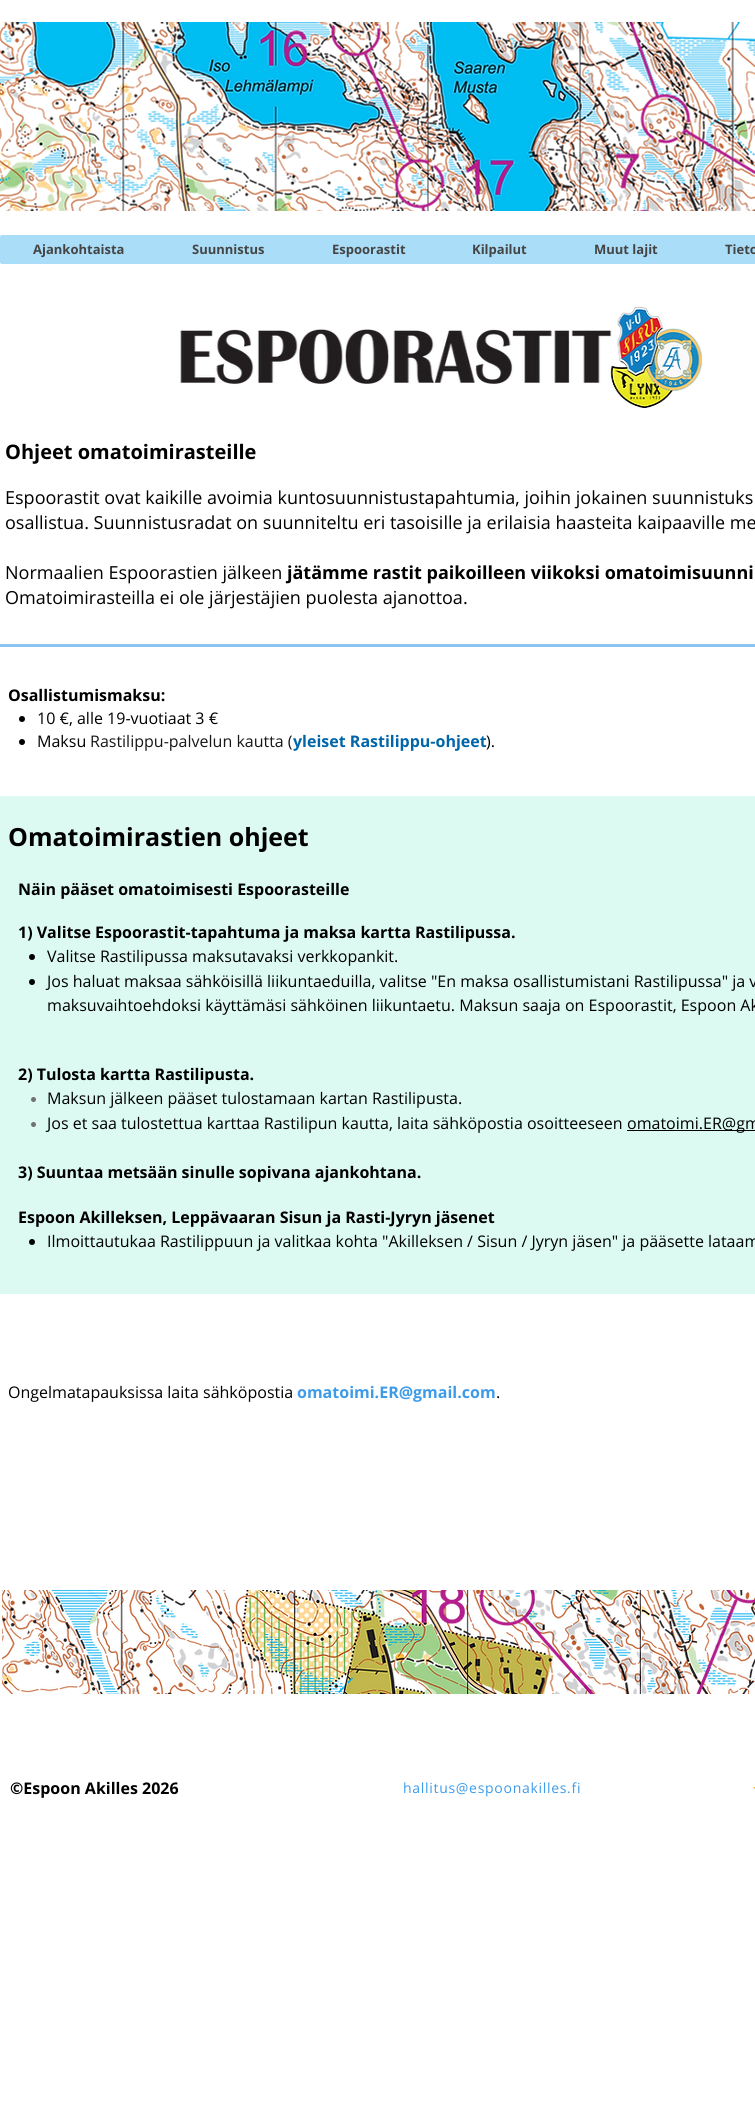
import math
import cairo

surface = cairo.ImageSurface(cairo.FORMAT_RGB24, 755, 2105)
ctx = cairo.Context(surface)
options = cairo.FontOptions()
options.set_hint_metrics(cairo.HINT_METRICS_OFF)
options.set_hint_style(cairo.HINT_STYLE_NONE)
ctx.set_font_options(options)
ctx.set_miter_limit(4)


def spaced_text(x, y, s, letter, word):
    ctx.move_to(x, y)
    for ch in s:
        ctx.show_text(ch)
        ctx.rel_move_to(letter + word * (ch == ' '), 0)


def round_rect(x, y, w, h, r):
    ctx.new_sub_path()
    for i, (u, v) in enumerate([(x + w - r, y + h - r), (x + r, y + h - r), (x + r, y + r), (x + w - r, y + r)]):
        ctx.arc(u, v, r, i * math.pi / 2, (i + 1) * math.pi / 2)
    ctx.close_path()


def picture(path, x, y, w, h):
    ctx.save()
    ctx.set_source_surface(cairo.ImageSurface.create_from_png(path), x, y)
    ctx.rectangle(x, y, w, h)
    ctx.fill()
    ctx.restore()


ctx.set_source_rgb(1, 1, 1)
ctx.paint()
picture("img1.png", 0, 22, 755, 189)
ctx.set_source_rgb(0.667, 0.867, 0.965)
round_rect(0, 235, 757, 29, 2)
ctx.fill()
ctx.select_font_face("Open Sans", cairo.FONT_SLANT_NORMAL, cairo.FONT_WEIGHT_BOLD)
ctx.set_font_size(13)
ctx.set_source_rgb(0.267, 0.267, 0.267)
ctx.move_to(33, 254)
ctx.show_text("Ajankohtaista")
ctx.move_to(192, 254)
ctx.show_text("Suunnistus")
ctx.move_to(332, 254)
ctx.show_text("Espoorastit")
ctx.move_to(472, 254)
ctx.show_text("Kilpailut")
ctx.move_to(594, 254)
ctx.show_text("Muut lajit")
ctx.move_to(725, 254)
ctx.show_text("Tieto")
picture("img2.png", 180, 306, 523, 103)
ctx.set_font_size(20)
ctx.set_source_rgb(0, 0, 0)
ctx.move_to(5, 459)
ctx.show_text("Ohjeet omatoimirasteille")
ctx.select_font_face("Open Sans")
ctx.set_font_size(18)
ctx.move_to(5, 504)
ctx.show_text("Espoorastit ovat kaikille avoimia kuntosuunnistustapahtumia, joihin jokainen suunnistuks")
ctx.move_to(5, 529)
ctx.show_text("osallistua. Suunnistusradat on suunniteltu eri tasoisille ja erilaisia haasteita kaipaaville me")
ctx.move_to(5, 579)
ctx.show_text("Normaalien Espoorastien jälkeen")
ctx.select_font_face("Open Sans", cairo.FONT_SLANT_NORMAL, cairo.FONT_WEIGHT_BOLD)
ctx.move_to(287, 579)
ctx.show_text("jätämme rastit paikoilleen viikoksi omatoimisuunni")
ctx.select_font_face("Open Sans")
ctx.move_to(5, 604)
ctx.show_text("Omatoimirasteilla ei ole järjestäjien puolesta ajanottoa.")
ctx.set_source_rgb(0.545, 0.765, 0.949)
ctx.rectangle(0, 644, 755, 3)
ctx.fill()
ctx.select_font_face("Open Sans", cairo.FONT_SLANT_NORMAL, cairo.FONT_WEIGHT_BOLD)
ctx.set_font_size(16)
ctx.set_source_rgb(0, 0, 0)
ctx.move_to(8, 701)
ctx.show_text("Osallistumismaksu:")
ctx.new_path()
ctx.arc(22, 719, 3, 0, 2 * math.pi)
ctx.fill()
ctx.select_font_face("Open Sans")
ctx.move_to(37, 724)
ctx.show_text("10 €, alle 19-vuotiaat 3 €")
ctx.new_path()
ctx.arc(22, 742, 3, 0, 2 * math.pi)
ctx.fill()
ctx.move_to(37, 747)
ctx.show_text("Maksu")
ctx.set_source_rgb(0.09, 0.09, 0.09)
ctx.move_to(90, 747)
ctx.show_text("Rastilippu-palvelun kautta (")
ctx.select_font_face("Open Sans", cairo.FONT_SLANT_NORMAL, cairo.FONT_WEIGHT_BOLD)
ctx.set_source_rgb(0, 0.396, 0.663)
ctx.move_to(293, 747)
ctx.show_text("yleiset Rastilippu-ohjeet")
ctx.select_font_face("Open Sans")
ctx.set_source_rgb(0, 0, 0)
ctx.move_to(486, 747)
ctx.show_text(").")
ctx.set_source_rgb(0.863, 0.98, 0.949)
ctx.rectangle(0, 796, 755, 498)
ctx.fill()
ctx.select_font_face("Open Sans", cairo.FONT_SLANT_NORMAL, cairo.FONT_WEIGHT_BOLD)
ctx.set_font_size(25)
ctx.set_source_rgb(0, 0, 0)
ctx.move_to(8, 846)
ctx.show_text("Omatoimirastien ohjeet")
ctx.set_font_size(16)
ctx.move_to(18, 895)
ctx.show_text("Näin pääset omatoimisesti Espoorasteille")
ctx.move_to(18, 938)
ctx.show_text("1) Valitse Espoorastit-tapahtuma ja maksa kartta Rastilipussa.")
ctx.new_path()
ctx.arc(32, 957, 3, 0, 2 * math.pi)
ctx.fill()
ctx.select_font_face("Open Sans")
ctx.move_to(47, 962)
ctx.show_text("Valitse Rastilipussa maksutavaksi verkkopankit.")
ctx.new_path()
ctx.arc(32, 982, 3, 0, 2 * math.pi)
ctx.fill()
ctx.move_to(47, 987)
ctx.show_text("Jos haluat maksaa sähköisillä liikuntaeduilla, valitse \"En maksa osallistumistani Rastilipussa\" ja v")
ctx.move_to(47, 1011)
ctx.show_text("maksuvaihtoehdoksi käyttämäsi sähköinen liikuntaetu. Maksun saaja on Espoorastit, Espoon Ak")
ctx.select_font_face("Open Sans", cairo.FONT_SLANT_NORMAL, cairo.FONT_WEIGHT_BOLD)
ctx.move_to(18, 1080)
ctx.show_text("2) Tulosta kartta Rastilipusta.")
ctx.set_source_rgb(0.439, 0.439, 0.439)
ctx.new_path()
ctx.arc(33.5, 1099.5, 2.5, 0, 2 * math.pi)
ctx.fill()
ctx.select_font_face("Open Sans")
ctx.set_source_rgb(0, 0, 0)
ctx.move_to(47, 1104)
ctx.show_text("Maksun jälkeen pääset tulostamaan kartan Rastilipusta.")
ctx.set_source_rgb(0.439, 0.439, 0.439)
ctx.new_path()
ctx.arc(33.5, 1124.5, 2.5, 0, 2 * math.pi)
ctx.fill()
ctx.set_source_rgb(0, 0, 0)
ctx.move_to(47, 1129)
ctx.show_text("Jos et saa tulostettua karttaa Rastilipun kautta, laita sähköpostia osoitteeseen")
ctx.rectangle(627, 1130, 128, 1)
ctx.fill()
ctx.move_to(627, 1129)
ctx.show_text("omatoimi.ER@gm")
ctx.select_font_face("Open Sans", cairo.FONT_SLANT_NORMAL, cairo.FONT_WEIGHT_BOLD)
ctx.move_to(18, 1178)
ctx.show_text("3) Suuntaa metsään sinulle sopivana ajankohtana.")
ctx.move_to(18, 1223)
ctx.show_text("Espoon Akilleksen, Leppävaaran Sisun ja Rasti-Jyryn jäsenet")
ctx.new_path()
ctx.arc(32, 1242, 3, 0, 2 * math.pi)
ctx.fill()
ctx.select_font_face("Open Sans")
ctx.move_to(47, 1247)
ctx.show_text("Ilmoittautukaa Rastilippuun ja valitkaa kohta \"Akilleksen / Sisun / Jyryn jäsen\" ja pääsette lataam")
ctx.move_to(8, 1398)
ctx.show_text("Ongelmatapauksissa laita sähköpostia")
ctx.select_font_face("Open Sans", cairo.FONT_SLANT_NORMAL, cairo.FONT_WEIGHT_BOLD)
ctx.set_source_rgb(0.239, 0.608, 0.914)
ctx.move_to(297, 1398)
ctx.show_text("omatoimi.ER@gmail.com")
ctx.select_font_face("Open Sans")
ctx.set_source_rgb(0, 0, 0)
ctx.move_to(496, 1398)
ctx.show_text(".")
picture("img3.png", 2, 1590, 753, 104)
ctx.select_font_face("Open Sans", cairo.FONT_SLANT_NORMAL, cairo.FONT_WEIGHT_BOLD)
ctx.move_to(10, 1794)
ctx.show_text("©Espoon Akilles 2026")
ctx.select_font_face("Open Sans")
ctx.set_font_size(14)
ctx.set_source_rgb(0.239, 0.608, 0.914)
spaced_text(403, 1793, "hallitus@espoonakilles.fi", 0.7, 0)
picture("img4.png", 753, 1784, 2, 5)
surface.write_to_png("page.png")
